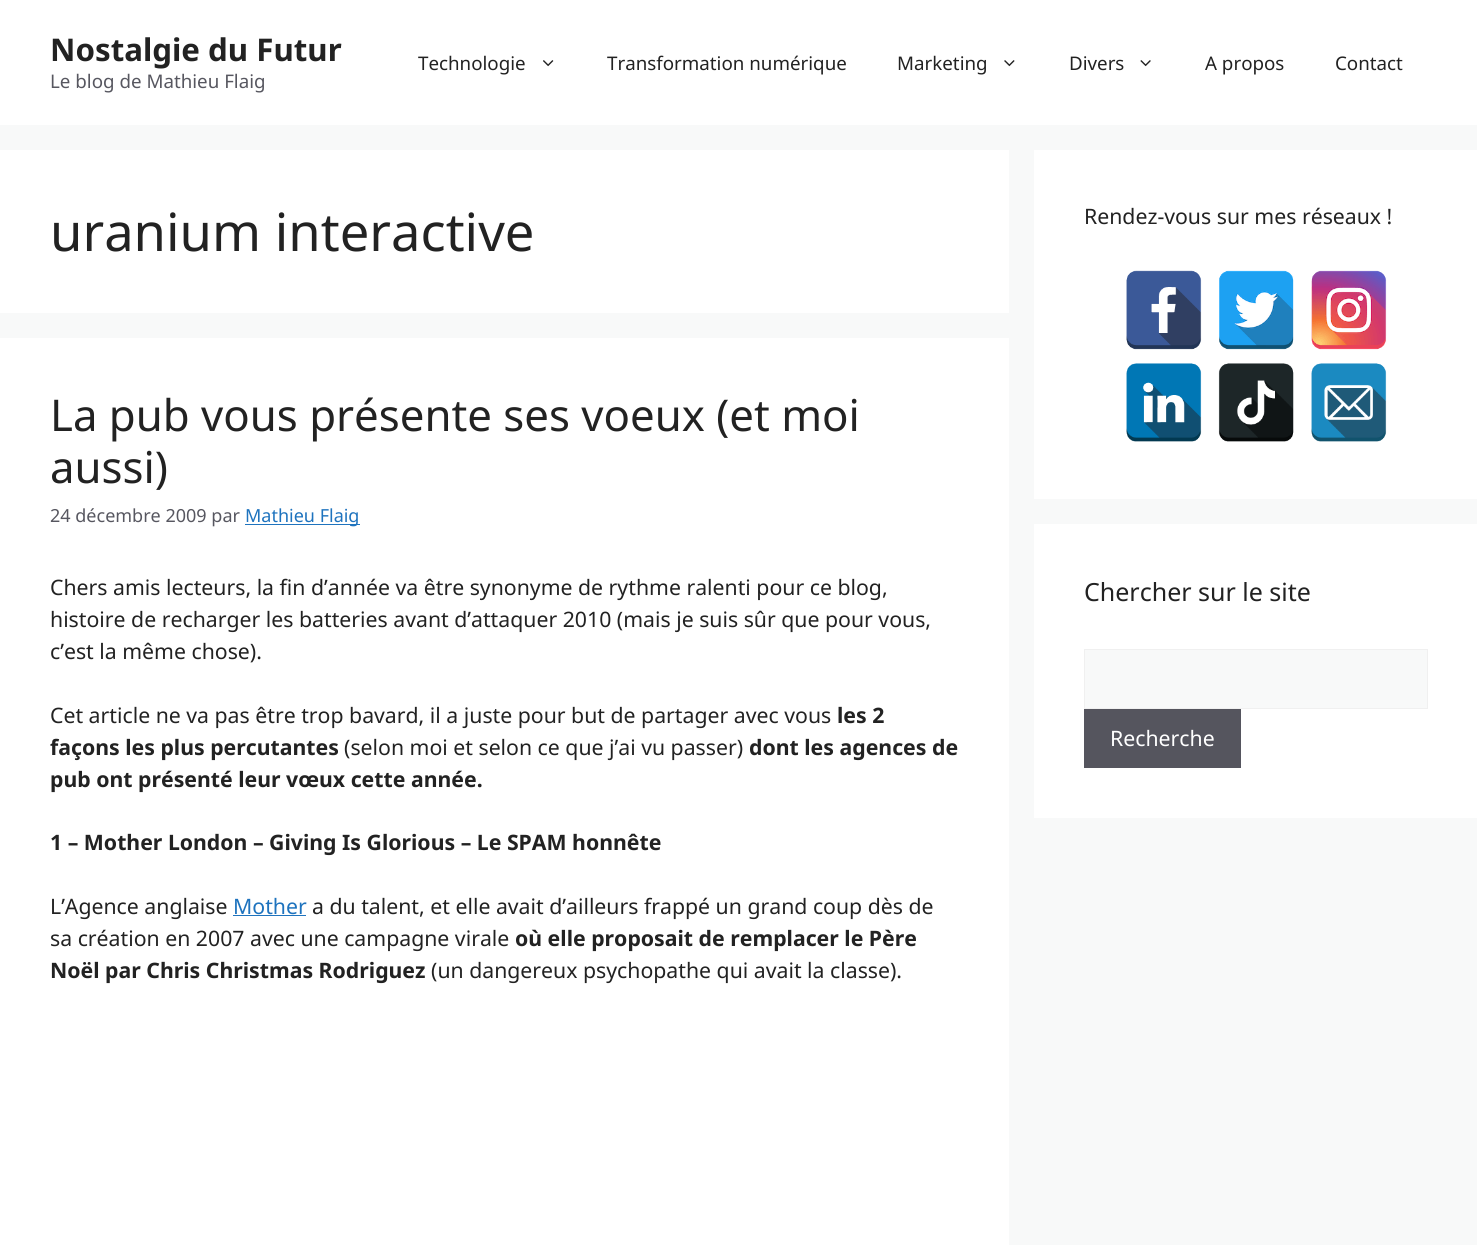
import math
import cairo

surface = cairo.ImageSurface(cairo.FORMAT_RGB24, 1477, 1245)
ctx = cairo.Context(surface)
options = cairo.FontOptions()
options.set_hint_metrics(cairo.HINT_METRICS_OFF)
options.set_hint_style(cairo.HINT_STYLE_NONE)
ctx.set_font_options(options)
ctx.set_miter_limit(4)


def picture(path, x, y, w, h):
    ctx.save()
    ctx.set_source_surface(cairo.ImageSurface.create_from_png(path), x, y)
    ctx.rectangle(x, y, w, h)
    ctx.fill()
    ctx.restore()


ctx.set_source_rgb(0.969, 0.973, 0.976)
ctx.paint()
ctx.set_source_rgb(1, 1, 1)
ctx.rectangle(0, 0, 1477, 125)
ctx.fill()
ctx.select_font_face("Noto Sans", cairo.FONT_SLANT_NORMAL, cairo.FONT_WEIGHT_BOLD)
ctx.set_font_size(31.25)
ctx.set_source_rgb(0.133, 0.133, 0.133)
ctx.move_to(50, 61)
ctx.show_text("Nostalgie du Futur")
ctx.select_font_face("Noto Sans")
ctx.set_font_size(18.75)
ctx.set_source_rgb(0.341, 0.341, 0.376)
ctx.move_to(50, 88)
ctx.show_text("Le blog de Mathieu Flaig")
ctx.set_source_rgb(0.133, 0.133, 0.133)
ctx.move_to(418, 70)
ctx.show_text("Technologie")
picture("img1.png", 543, 60, 11, 7)
ctx.move_to(607, 70)
ctx.show_text("Transformation numérique")
ctx.move_to(897, 70)
ctx.show_text("Marketing")
picture("img2.png", 1004, 60, 11, 7)
ctx.move_to(1069, 70)
ctx.show_text("Divers")
picture("img3.png", 1140, 60, 11, 7)
ctx.move_to(1205, 70)
ctx.show_text("A propos")
ctx.move_to(1335, 70)
ctx.show_text("Contact")
ctx.set_source_rgb(1, 1, 1)
ctx.rectangle(0, 150, 1009, 163)
ctx.fill()
ctx.set_font_size(52.5)
ctx.set_source_rgb(0.133, 0.133, 0.133)
ctx.move_to(50, 251)
ctx.show_text("uranium interactive")
ctx.set_source_rgb(1, 1, 1)
ctx.rectangle(0, 338, 1009, 907)
ctx.fill()
ctx.set_font_size(43.75)
ctx.set_source_rgb(0.133, 0.133, 0.133)
ctx.move_to(50, 431)
ctx.show_text("La pub vous présente ses voeux (et moi")
ctx.move_to(50, 483)
ctx.show_text("aussi)")
ctx.set_font_size(18)
ctx.set_source_rgb(0.341, 0.341, 0.376)
ctx.move_to(50, 522)
ctx.show_text("24 décembre 2009 par")
ctx.set_source_rgb(0.118, 0.451, 0.745)
ctx.rectangle(245, 524, 115, 1)
ctx.fill()
ctx.move_to(245, 522)
ctx.show_text("Mathieu Flaig")
ctx.set_font_size(21.25)
ctx.set_source_rgb(0.133, 0.133, 0.133)
ctx.move_to(50, 595)
ctx.show_text("Chers amis lecteurs, la fin d’année va être synonyme de rythme ralenti pour ce blog,")
ctx.move_to(50, 627)
ctx.show_text("histoire de recharger les batteries avant d’attaquer 2010 (mais je suis sûr que pour vous,")
ctx.move_to(50, 659)
ctx.show_text("c’est la même chose).")
ctx.move_to(50, 723)
ctx.show_text("Cet article ne va pas être trop bavard, il a juste pour but de partager avec vous")
ctx.select_font_face("Noto Sans", cairo.FONT_SLANT_NORMAL, cairo.FONT_WEIGHT_BOLD)
ctx.move_to(837, 723)
ctx.show_text("les 2")
ctx.move_to(50, 755)
ctx.show_text("façons les plus percutantes")
ctx.select_font_face("Noto Sans")
ctx.move_to(344, 755)
ctx.show_text("(selon moi et selon ce que j’ai vu passer)")
ctx.select_font_face("Noto Sans", cairo.FONT_SLANT_NORMAL, cairo.FONT_WEIGHT_BOLD)
ctx.move_to(749, 755)
ctx.show_text("dont les agences de")
ctx.move_to(50, 787)
ctx.show_text("pub ont présenté leur vœux cette année.")
ctx.move_to(50, 850)
ctx.show_text("1 – Mother London – Giving Is Glorious – Le SPAM honnête")
ctx.select_font_face("Noto Sans")
ctx.move_to(50, 914)
ctx.show_text("L’Agence anglaise")
ctx.set_source_rgb(0.118, 0.451, 0.745)
ctx.move_to(233, 914)
ctx.show_text("Mother")
ctx.rectangle(233, 915, 73, 1)
ctx.fill()
ctx.set_source_rgb(0.133, 0.133, 0.133)
ctx.move_to(312, 914)
ctx.show_text("a du talent, et elle avait d’ailleurs frappé un grand coup dès de")
ctx.move_to(50, 946)
ctx.show_text("sa création en 2007 avec une campagne virale")
ctx.select_font_face("Noto Sans", cairo.FONT_SLANT_NORMAL, cairo.FONT_WEIGHT_BOLD)
ctx.move_to(515, 946)
ctx.show_text("où elle proposait de remplacer le Père")
ctx.move_to(50, 978)
ctx.show_text("Noël par Chris Christmas Rodriguez")
ctx.select_font_face("Noto Sans")
ctx.move_to(431, 978)
ctx.show_text("(un dangereux psychopathe qui avait la classe).")
ctx.set_source_rgb(1, 1, 1)
ctx.rectangle(1034, 150, 443, 349)
ctx.fill()
ctx.set_source_rgb(0.133, 0.133, 0.133)
ctx.move_to(1084, 224)
ctx.show_text("Rendez-vous sur mes réseaux !")
picture("img4.png", 1126, 270, 76, 80)
picture("img5.png", 1219, 270, 75, 80)
picture("img6.png", 1311, 270, 76, 80)
picture("img7.png", 1126, 363, 76, 79)
picture("img8.png", 1218, 363, 76, 79)
picture("img9.png", 1311, 363, 76, 79)
ctx.set_source_rgb(1, 1, 1)
ctx.rectangle(1034, 524, 443, 294)
ctx.fill()
ctx.set_font_size(25)
ctx.set_source_rgb(0.133, 0.133, 0.133)
ctx.move_to(1084, 601)
ctx.show_text("Chercher sur le site")
ctx.set_source_rgb(0.969, 0.973, 0.976)
ctx.rectangle(1084.5, 649.5, 343, 59)
ctx.fill_preserve()
ctx.set_source_rgb(0.941, 0.941, 0.941)
ctx.set_line_width(1)
ctx.stroke()
ctx.set_source_rgb(0.333, 0.333, 0.369)
ctx.rectangle(1084, 709, 157, 59)
ctx.fill()
ctx.set_font_size(21.25)
ctx.set_source_rgb(1, 1, 1)
ctx.move_to(1110, 746)
ctx.show_text("Recherche")
surface.write_to_png("page.png")
